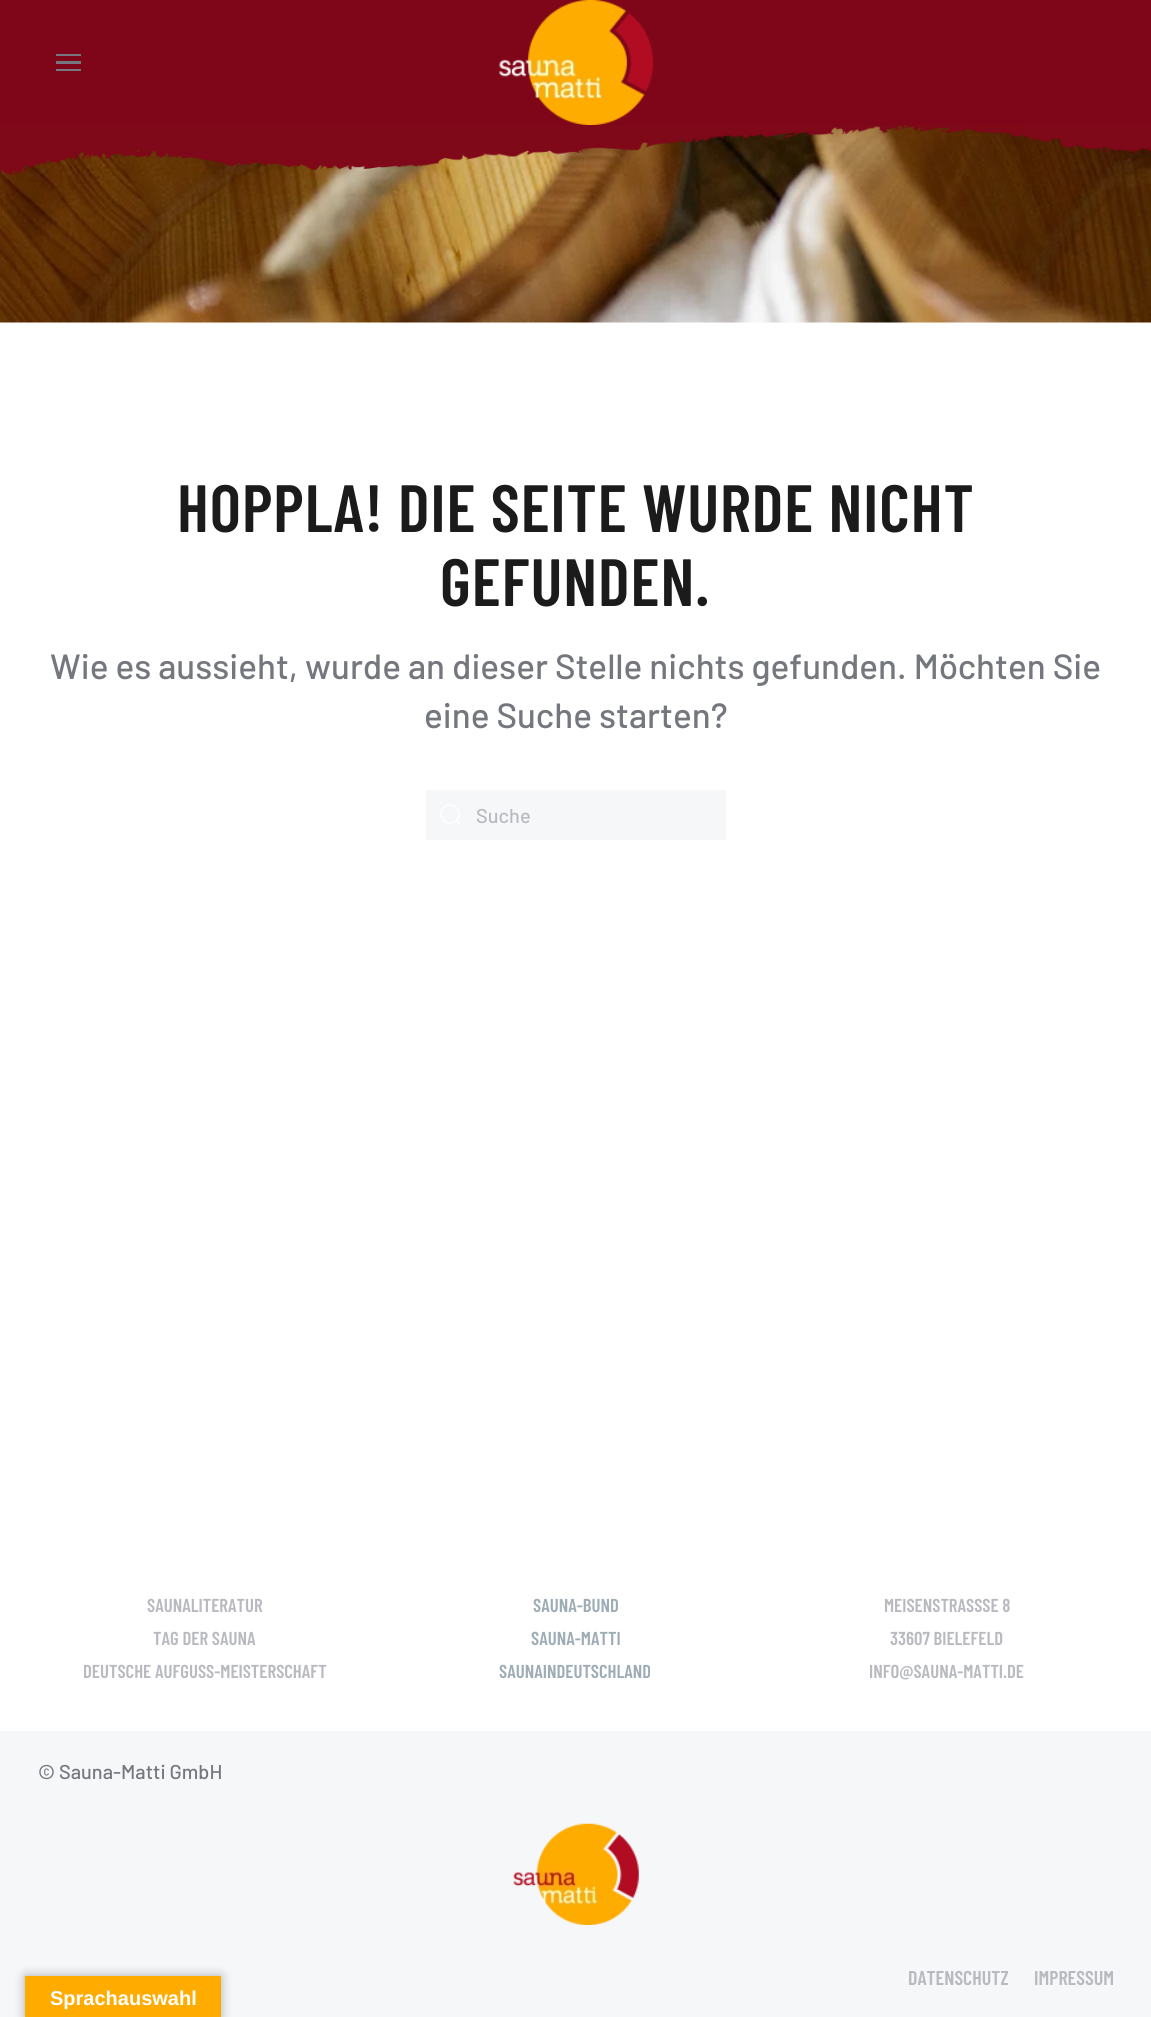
import math
import cairo

surface = cairo.ImageSurface(cairo.FORMAT_RGB24, 1151, 2017)
ctx = cairo.Context(surface)
options = cairo.FontOptions()
options.set_hint_metrics(cairo.HINT_METRICS_OFF)
options.set_hint_style(cairo.HINT_STYLE_NONE)
ctx.set_font_options(options)
ctx.set_miter_limit(4)


def spaced_text(x, y, s, letter, word):
    ctx.move_to(x, y)
    for ch in s:
        ctx.show_text(ch)
        ctx.rel_move_to(letter + word * (ch == ' '), 0)


def round_rect(x, y, w, h, r):
    ctx.new_sub_path()
    for i, (u, v) in enumerate([(x + w - r, y + h - r), (x + r, y + h - r), (x + r, y + r), (x + w - r, y + r)]):
        ctx.arc(u, v, r, i * math.pi / 2, (i + 1) * math.pi / 2)
    ctx.close_path()


def shadow(x, y, w, h, r, blur, alpha):
    ctx.push_group_with_content(cairo.CONTENT_ALPHA)
    ctx.set_operator(cairo.OPERATOR_SOURCE)
    for i in range(15, -16, -2):
        e = blur * i / 6
        if min(w, h) + 2 * e > 0:
            ctx.set_source_rgba(0, 0, 0, alpha * math.erfc((i - 1) / 8.5) / 2)
            round_rect(x - e, y - e, w + 2 * e, h + 2 * e, max(0, min(r + e + blur * .6, min(w, h) / 2 + e)))
            ctx.fill()
    ctx.mask(ctx.pop_group())


def picture(path, x, y, w, h):
    ctx.save()
    ctx.set_source_surface(cairo.ImageSurface.create_from_png(path), x, y)
    ctx.rectangle(x, y, w, h)
    ctx.fill()
    ctx.restore()


ctx.set_source_rgb(1, 1, 1)
ctx.paint()
ctx.set_source_rgb(0.498, 0.027, 0.098)
ctx.rectangle(0, 0, 1151, 125)
ctx.fill()
ctx.set_source_rgb(0.455, 0.467, 0.49)
ctx.rectangle(56, 54, 25, 2)
ctx.fill()
ctx.rectangle(56, 61, 25, 3)
ctx.fill()
ctx.rectangle(56, 69, 25, 2)
ctx.fill()
picture("img1.png", 499, 0, 155, 125)
picture("img2.png", 0, 125, 1151, 198)
picture("img3.png", 0, 125, 1151, 50)
ctx.select_font_face("Barlow Condensed SemiBold")
ctx.set_font_size(66.75)
ctx.set_source_rgb(0.106, 0.106, 0.106)
spaced_text(177, 532, "HOPPLA! DIE SEITE WURDE NICHT", 0.95, 0)
spaced_text(440, 606, "GEFUNDEN.", 0.95, 0)
ctx.select_font_face("Barlow Medium")
ctx.set_font_size(35)
ctx.set_source_rgb(0.455, 0.467, 0.49)
ctx.move_to(50, 679)
ctx.show_text("Wie es aussieht, wurde an dieser Stelle nichts gefunden. Möchten Sie")
ctx.move_to(424, 728)
ctx.show_text("eine Suche starten?")
ctx.set_source_rgb(0.961, 0.965, 0.973)
ctx.rectangle(426, 790, 300, 50)
ctx.fill()
ctx.arc(450, 814, 9, 0, 2 * math.pi)
ctx.set_source_rgb(1, 1, 1)
ctx.set_line_width(1.4)
ctx.stroke()
ctx.new_path()
ctx.move_to(456, 820)
ctx.line_to(461, 825)
ctx.close_path()
ctx.stroke()
ctx.set_font_size(20)
ctx.set_source_rgb(0.722, 0.729, 0.749)
ctx.move_to(476, 823)
ctx.show_text("Suche")
ctx.select_font_face("Barlow Condensed SemiBold")
ctx.set_font_size(18.75)
ctx.move_to(147, 1612)
ctx.show_text("SAUNALITERATUR")
ctx.move_to(153, 1645)
ctx.show_text("TAG DER SAUNA")
ctx.move_to(83, 1678)
ctx.show_text("DEUTSCHE AUFGUSS-MEISTERSCHAFT")
ctx.set_source_rgb(0.62, 0.675, 0.714)
ctx.move_to(533, 1612)
ctx.show_text("SAUNA-BUND")
ctx.move_to(531, 1645)
ctx.show_text("SAUNA-MATTI")
ctx.move_to(499, 1678)
ctx.show_text("SAUNAINDEUTSCHLAND")
ctx.set_source_rgb(0.722, 0.729, 0.749)
ctx.move_to(884, 1612)
ctx.show_text("MEISENSTRASSSE 8")
ctx.move_to(890, 1645)
ctx.show_text("33607 BIELEFELD")
ctx.move_to(869, 1678)
ctx.show_text("INFO@SAUNA-MATTI.DE")
ctx.set_source_rgb(0.961, 0.965, 0.973)
ctx.rectangle(0, 1731, 1151, 286)
ctx.fill()
ctx.select_font_face("Barlow Medium")
ctx.set_font_size(20)
ctx.set_source_rgb(0.455, 0.467, 0.49)
ctx.move_to(38, 1779)
ctx.show_text("© Sauna-Matti GmbH")
picture("img4.png", 513, 1823, 126, 102)
ctx.select_font_face("Barlow Condensed SemiBold")
ctx.set_source_rgb(0.722, 0.729, 0.749)
ctx.move_to(908, 1985)
ctx.show_text("DATENSCHUTZ")
ctx.move_to(1034, 1985)
ctx.show_text("IMPRESSUM")
ctx.set_source_rgb(0, 0, 0)
shadow(25, 1976, 196, 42, 0, 5.5, 0.3)
ctx.set_source_rgb(1, 0.671, 0)
ctx.rectangle(25, 1976, 196, 41)
ctx.fill()
ctx.select_font_face("Liberation Sans", cairo.FONT_SLANT_NORMAL, cairo.FONT_WEIGHT_BOLD)
ctx.set_source_rgb(1, 1, 1)
ctx.move_to(50, 2005)
ctx.show_text("Sprachauswahl")
surface.write_to_png("page.png")
